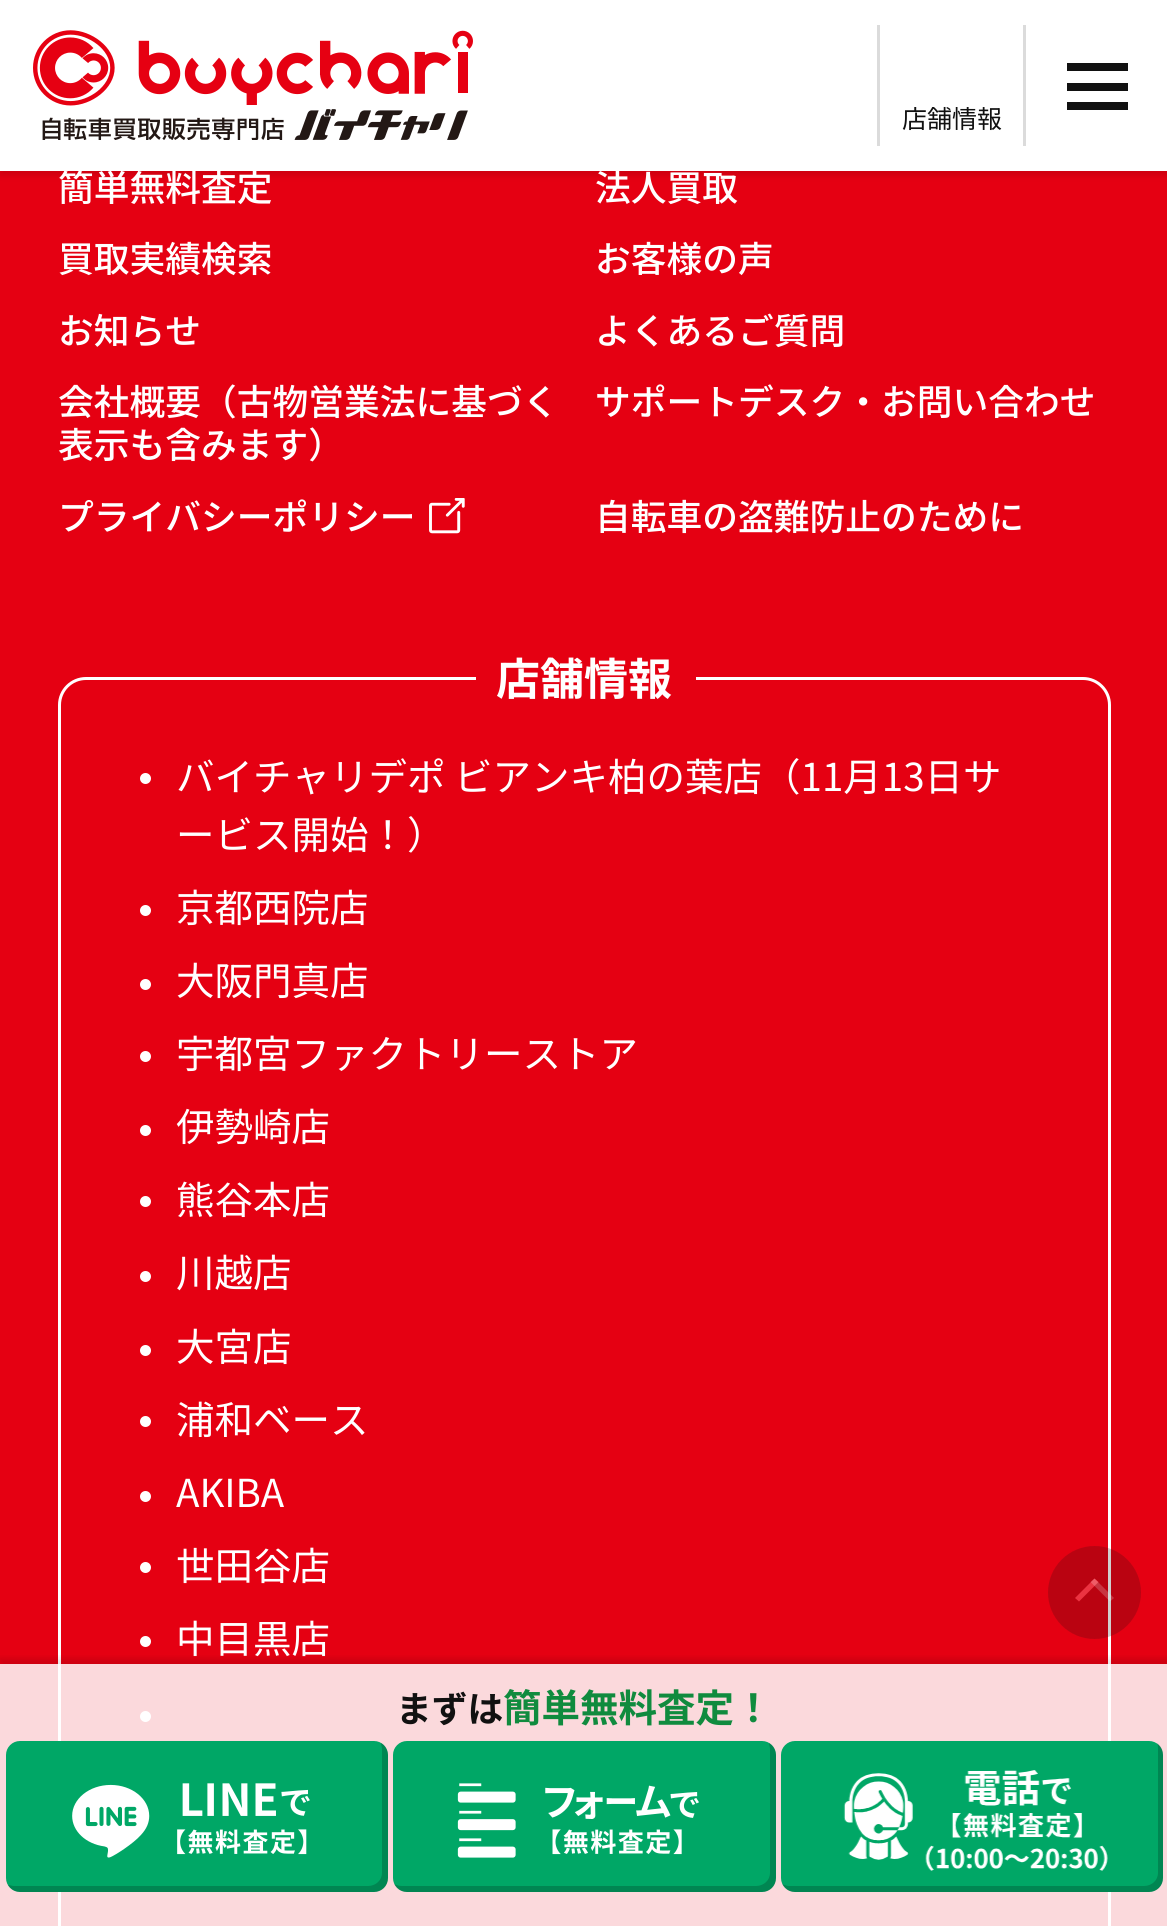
import math
import cairo

surface = cairo.ImageSurface(cairo.FORMAT_RGB24, 1167, 1926)
ctx = cairo.Context(surface)
options = cairo.FontOptions()
options.set_hint_metrics(cairo.HINT_METRICS_OFF)
options.set_hint_style(cairo.HINT_STYLE_NONE)
ctx.set_font_options(options)
ctx.set_miter_limit(4)


def round_rect(x, y, w, h, r):
    ctx.new_sub_path()
    for i, (u, v) in enumerate([(x + w - r, y + h - r), (x + r, y + h - r), (x + r, y + r), (x + w - r, y + r)]):
        ctx.arc(u, v, r, i * math.pi / 2, (i + 1) * math.pi / 2)
    ctx.close_path()


def shadow(x, y, w, h, r, blur, alpha):
    ctx.push_group_with_content(cairo.CONTENT_ALPHA)
    ctx.set_operator(cairo.OPERATOR_SOURCE)
    for i in range(15, -16, -2):
        e = blur * i / 6
        if min(w, h) + 2 * e > 0:
            ctx.set_source_rgba(0, 0, 0, alpha * math.erfc((i - 1) / 8.5) / 2)
            round_rect(x - e, y - e, w + 2 * e, h + 2 * e, max(0, min(r + e + blur * .6, min(w, h) / 2 + e)))
            ctx.fill()
    ctx.mask(ctx.pop_group())


def picture(path, x, y, w, h):
    ctx.save()
    ctx.set_source_surface(cairo.ImageSurface.create_from_png(path), x, y)
    ctx.rectangle(x, y, w, h)
    ctx.fill()
    ctx.restore()


ctx.set_source_rgb(0.898, 0, 0.071)
ctx.paint()
ctx.set_source_rgb(0, 0, 0)
shadow(0, 6, 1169, 170, 0, 3, 0.1)
ctx.set_source_rgb(1, 1, 1)
ctx.rectangle(0, 0, 1167, 171)
ctx.fill()
picture("img1.png", 33, 30, 440, 110)
ctx.set_source_rgb(0.067, 0.067, 0.067)
ctx.rectangle(1067, 83, 61, 8)
ctx.fill()
ctx.rectangle(1067, 63, 61, 8)
ctx.fill()
ctx.rectangle(1067, 102, 61, 8)
ctx.fill()
ctx.set_source_rgb(0.859, 0.859, 0.859)
ctx.rectangle(1023, 25, 3, 121)
ctx.fill()
ctx.rectangle(877, 25, 3, 121)
ctx.fill()
ctx.select_font_face("Noto Sans JP")
ctx.set_font_size(25)
ctx.set_source_rgb(0.067, 0.067, 0.067)
ctx.move_to(902, 128)
ctx.show_text("店舗情報")
ctx.select_font_face("Noto Sans JP Medium")
ctx.set_font_size(35.75)
ctx.set_source_rgb(1, 1, 1)
ctx.move_to(58, 201)
ctx.show_text("簡単無料査定")
ctx.move_to(595, 201)
ctx.show_text("法人買取")
ctx.move_to(58, 272)
ctx.show_text("買取実績検索")
ctx.move_to(595, 272)
ctx.show_text("お客様の声")
ctx.move_to(58, 344)
ctx.show_text("お知らせ")
ctx.move_to(595, 344)
ctx.show_text("よくあるご質問")
ctx.move_to(58, 415)
ctx.show_text("会社概要（古物営業法に基づく")
ctx.move_to(58, 458)
ctx.show_text("表示も含みます）")
ctx.move_to(595, 415)
ctx.show_text("サポートデスク・お問い合わせ")
ctx.move_to(58, 530)
ctx.show_text("プライバシーポリシー")
picture("img2.png", 429, 498, 36, 36)
ctx.move_to(595, 530)
ctx.show_text("自転車の盗難防止のために")
round_rect(59.5, 678.5, 1050, 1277, 26.5)
ctx.set_line_width(3)
ctx.stroke()
ctx.set_source_rgb(0.898, 0, 0.071)
ctx.rectangle(476, 677, 220, 3)
ctx.fill()
ctx.select_font_face("Noto Sans JP", cairo.FONT_SLANT_NORMAL, cairo.FONT_WEIGHT_BOLD)
ctx.set_font_size(44)
ctx.set_source_rgb(1, 1, 1)
ctx.move_to(496, 695)
ctx.show_text("店舗情報")
ctx.new_path()
ctx.arc(145.5, 778.5, 5.5, 0, 2 * math.pi)
ctx.fill()
ctx.select_font_face("Noto Sans JP")
ctx.set_font_size(38.5)
ctx.move_to(176, 791)
ctx.show_text("バイチャリデポ ビアンキ柏の葉店（11月13日サ")
ctx.move_to(176, 849)
ctx.show_text("ービス開始！）")
ctx.new_path()
ctx.arc(145.5, 910.5, 5.5, 0, 2 * math.pi)
ctx.fill()
ctx.move_to(176, 922)
ctx.show_text("京都西院店")
ctx.new_path()
ctx.arc(145.5, 984.5, 5.5, 0, 2 * math.pi)
ctx.fill()
ctx.move_to(176, 995)
ctx.show_text("大阪門真店")
ctx.new_path()
ctx.arc(145.5, 1056.5, 5.5, 0, 2 * math.pi)
ctx.fill()
ctx.move_to(176, 1068)
ctx.show_text("宇都宮ファクトリーストア")
ctx.new_path()
ctx.arc(145.5, 1130.5, 5.5, 0, 2 * math.pi)
ctx.fill()
ctx.move_to(176, 1141)
ctx.show_text("伊勢崎店")
ctx.new_path()
ctx.arc(145.5, 1201.5, 5.5, 0, 2 * math.pi)
ctx.fill()
ctx.move_to(176, 1214)
ctx.show_text("熊谷本店")
ctx.new_path()
ctx.arc(145.5, 1276.5, 5.5, 0, 2 * math.pi)
ctx.fill()
ctx.move_to(176, 1287)
ctx.show_text("川越店")
ctx.new_path()
ctx.arc(145.5, 1350.5, 5.5, 0, 2 * math.pi)
ctx.fill()
ctx.move_to(176, 1361)
ctx.show_text("大宮店")
ctx.new_path()
ctx.arc(145.5, 1421.5, 5.5, 0, 2 * math.pi)
ctx.fill()
ctx.move_to(176, 1434)
ctx.show_text("浦和ベース")
ctx.new_path()
ctx.arc(145.5, 1496.5, 5.5, 0, 2 * math.pi)
ctx.fill()
ctx.move_to(176, 1507)
ctx.show_text("AKIBA")
ctx.new_path()
ctx.arc(145.5, 1567.5, 5.5, 0, 2 * math.pi)
ctx.fill()
ctx.move_to(176, 1580)
ctx.show_text("世田谷店")
ctx.new_path()
ctx.arc(145.5, 1641.5, 5.5, 0, 2 * math.pi)
ctx.fill()
ctx.move_to(176, 1653)
ctx.show_text("中目黒店")
ctx.new_path()
ctx.arc(145.5, 1716.5, 5.5, 0, 2 * math.pi)
ctx.fill()
ctx.set_source_rgba(0.067, 0.067, 0.067, 0.2)
ctx.arc(1094.5, 1592.5, 46.5, 0, 2 * math.pi)
ctx.fill()
ctx.set_source_rgb(0.918, 0.2, 0.255)
ctx.new_path()
ctx.move_to(1075, 1598)
ctx.line_to(1094.5, 1578.5)
ctx.line_to(1098.5, 1582)
ctx.line_to(1079, 1601.5)
ctx.close_path()
ctx.fill()
ctx.set_source_rgba(1, 1, 1, 0.2)
ctx.new_path()
ctx.move_to(1090.5, 1582)
ctx.line_to(1094.5, 1578.5)
ctx.line_to(1114, 1598)
ctx.line_to(1110, 1601.5)
ctx.close_path()
ctx.fill()
ctx.save()
ctx.rectangle(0, 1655, 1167, 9)
ctx.clip()
ctx.set_source_rgb(0, 0, 0)
shadow(0, 1658, 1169, 264, 0, 3, 0.1)
ctx.restore()
ctx.set_source_rgba(1, 1, 1, 0.85)
ctx.rectangle(0, 1664, 1167, 262)
ctx.fill()
ctx.select_font_face("Noto Sans JP", cairo.FONT_SLANT_NORMAL, cairo.FONT_WEIGHT_BOLD)
ctx.set_font_size(35.75)
ctx.set_source_rgb(0.067, 0.067, 0.067)
ctx.move_to(396, 1722)
ctx.show_text("まずは")
ctx.set_font_size(38.5)
ctx.set_source_rgb(0.063, 0.545, 0.243)
ctx.move_to(503, 1722)
ctx.show_text("簡単無料査定！")
ctx.set_source_rgb(0, 0.655, 0.4)
round_rect(6, 1741, 382, 151, 14)
ctx.fill()
ctx.set_source_rgba(0, 0, 0, 0.2)
ctx.new_path()
ctx.move_to(8, 1885)
ctx.curve_to(10, 1889, 15, 1892, 20, 1892)
ctx.line_to(374, 1892)
ctx.curve_to(382, 1892, 388, 1886, 388, 1878)
ctx.line_to(388, 1755)
ctx.curve_to(388, 1750, 385, 1745, 381, 1743)
ctx.curve_to(381, 1745, 382, 1747, 382, 1749)
ctx.line_to(382, 1873)
ctx.curve_to(382, 1880, 376, 1886, 368, 1886)
ctx.line_to(14, 1886)
ctx.curve_to(12, 1886, 10, 1885, 8, 1885)
ctx.close_path()
ctx.fill()
picture("img3.png", 72, 1783, 238, 75)
ctx.set_source_rgb(0, 0.655, 0.4)
round_rect(393, 1741, 383, 151, 14)
ctx.fill()
ctx.set_source_rgba(0, 0, 0, 0.2)
ctx.new_path()
ctx.move_to(394, 1884)
ctx.curve_to(397, 1889, 401, 1892, 407, 1892)
ctx.line_to(762, 1892)
ctx.curve_to(770, 1892, 776, 1886, 776, 1878)
ctx.line_to(776, 1755)
ctx.curve_to(776, 1750, 773, 1745, 769, 1743)
ctx.curve_to(769, 1745, 770, 1747, 770, 1749)
ctx.line_to(770, 1873)
ctx.curve_to(770, 1880, 764, 1886, 756, 1886)
ctx.line_to(402, 1886)
ctx.curve_to(399, 1886, 396, 1885, 394, 1884)
ctx.close_path()
ctx.fill()
picture("img4.png", 457, 1783, 242, 75)
ctx.set_source_rgb(0, 0.655, 0.4)
round_rect(781, 1741, 382, 151, 14)
ctx.fill()
ctx.set_source_rgba(0, 0, 0, 0.2)
ctx.new_path()
ctx.move_to(782, 1884)
ctx.curve_to(785, 1889, 789, 1892, 795, 1892)
ctx.line_to(1149, 1892)
ctx.curve_to(1157, 1892, 1163, 1886, 1163, 1878)
ctx.line_to(1163, 1755)
ctx.curve_to(1163, 1750, 1161, 1746, 1157, 1743)
ctx.curve_to(1158, 1745, 1158, 1747, 1158, 1749)
ctx.line_to(1158, 1873)
ctx.curve_to(1158, 1880, 1152, 1886, 1144, 1886)
ctx.line_to(789, 1886)
ctx.curve_to(787, 1886, 784, 1885, 782, 1884)
ctx.close_path()
ctx.fill()
picture("img5.png", 843, 1770, 265, 101)
surface.write_to_png("page.png")
